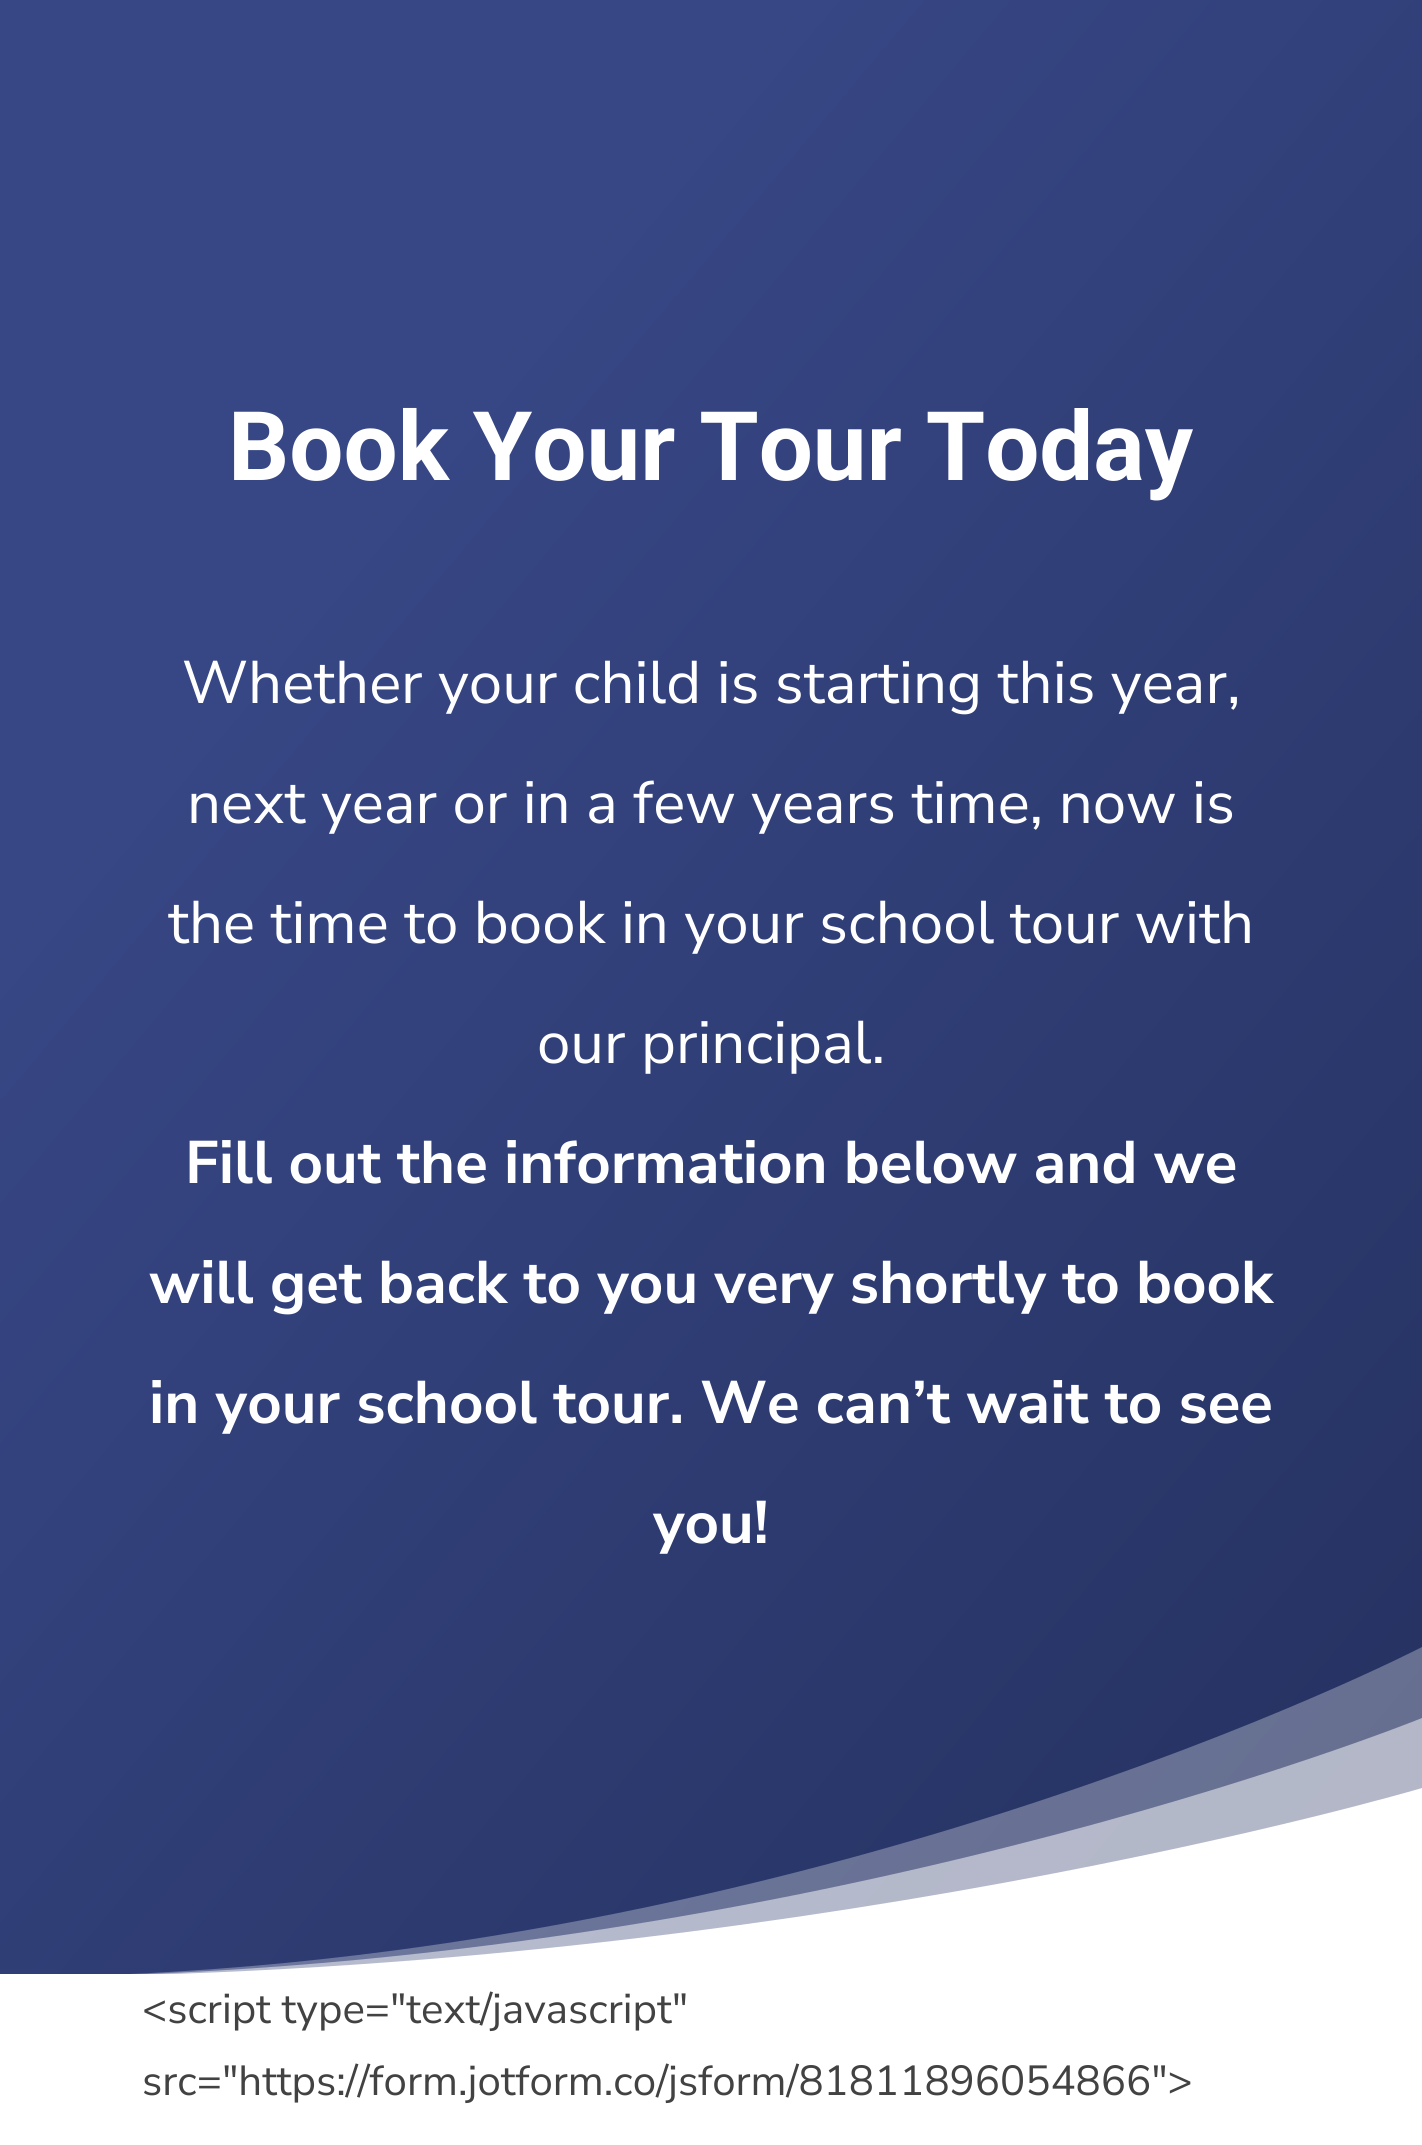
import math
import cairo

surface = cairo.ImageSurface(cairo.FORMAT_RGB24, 1422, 2145)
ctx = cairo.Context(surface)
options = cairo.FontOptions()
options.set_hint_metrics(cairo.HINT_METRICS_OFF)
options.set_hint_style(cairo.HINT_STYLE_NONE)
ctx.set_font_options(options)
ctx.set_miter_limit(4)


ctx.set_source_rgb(1, 1, 1)
ctx.paint()
gradient = cairo.LinearGradient(-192, 229, 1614, 1745)
gradient.add_color_stop_rgba(0.25, 0.216, 0.278, 0.522, 1)
gradient.add_color_stop_rgba(1, 0.141, 0.188, 0.369, 1)
ctx.set_source(gradient)
ctx.rectangle(0, 0, 1422, 1974)
ctx.fill()
ctx.select_font_face("Roboto", cairo.FONT_SLANT_NORMAL, cairo.FONT_WEIGHT_BOLD)
ctx.set_font_size(96)
ctx.set_source_rgb(1, 1, 1)
ctx.move_to(228, 480)
ctx.show_text("Book Your Tour Today")
ctx.select_font_face("Nunito Sans")
ctx.set_font_size(60)
ctx.move_to(182, 703)
ctx.show_text("Whether your child is starting this year,")
ctx.move_to(187, 823)
ctx.show_text("next year or in a few years time, now is")
ctx.move_to(168, 943)
ctx.show_text("the time to book in your school tour with")
ctx.move_to(537, 1063)
ctx.show_text("our principal.")
ctx.select_font_face("Nunito Sans", cairo.FONT_SLANT_NORMAL, cairo.FONT_WEIGHT_BOLD)
ctx.move_to(185, 1183)
ctx.show_text("Fill out the information below and we")
ctx.move_to(149, 1303)
ctx.show_text("will get back to you very shortly to book")
ctx.move_to(149, 1423)
ctx.show_text("in your school tour. We can’t wait to see")
ctx.move_to(653, 1543)
ctx.show_text("you!")
ctx.set_source_rgba(1, 1, 1, 0.3)
ctx.new_path()
ctx.move_to(1422, 1977)
ctx.line_to(0, 1977)
ctx.curve_to(785, 1977, 1422, 1647, 1422, 1647)
ctx.close_path()
ctx.fill()
ctx.set_source_rgba(1, 1, 1, 0.5)
ctx.new_path()
ctx.move_to(1422, 1977)
ctx.line_to(0, 1977)
ctx.curve_to(785, 1977, 1422, 1718, 1422, 1718)
ctx.close_path()
ctx.fill()
ctx.set_source_rgb(1, 1, 1)
ctx.new_path()
ctx.move_to(1422, 1977)
ctx.line_to(0, 1977)
ctx.curve_to(785, 1977, 1422, 1788, 1422, 1788)
ctx.close_path()
ctx.fill()
ctx.select_font_face("Nunito Sans")
ctx.set_font_size(42)
ctx.set_source_rgb(0.259, 0.259, 0.259)
ctx.move_to(142, 2023)
ctx.show_text("<script type=\"text/javascript\"")
ctx.move_to(142, 2095)
ctx.show_text("src=\"https://form.jotform.co/jsform/81811896054866\">")
surface.write_to_png("page.png")
